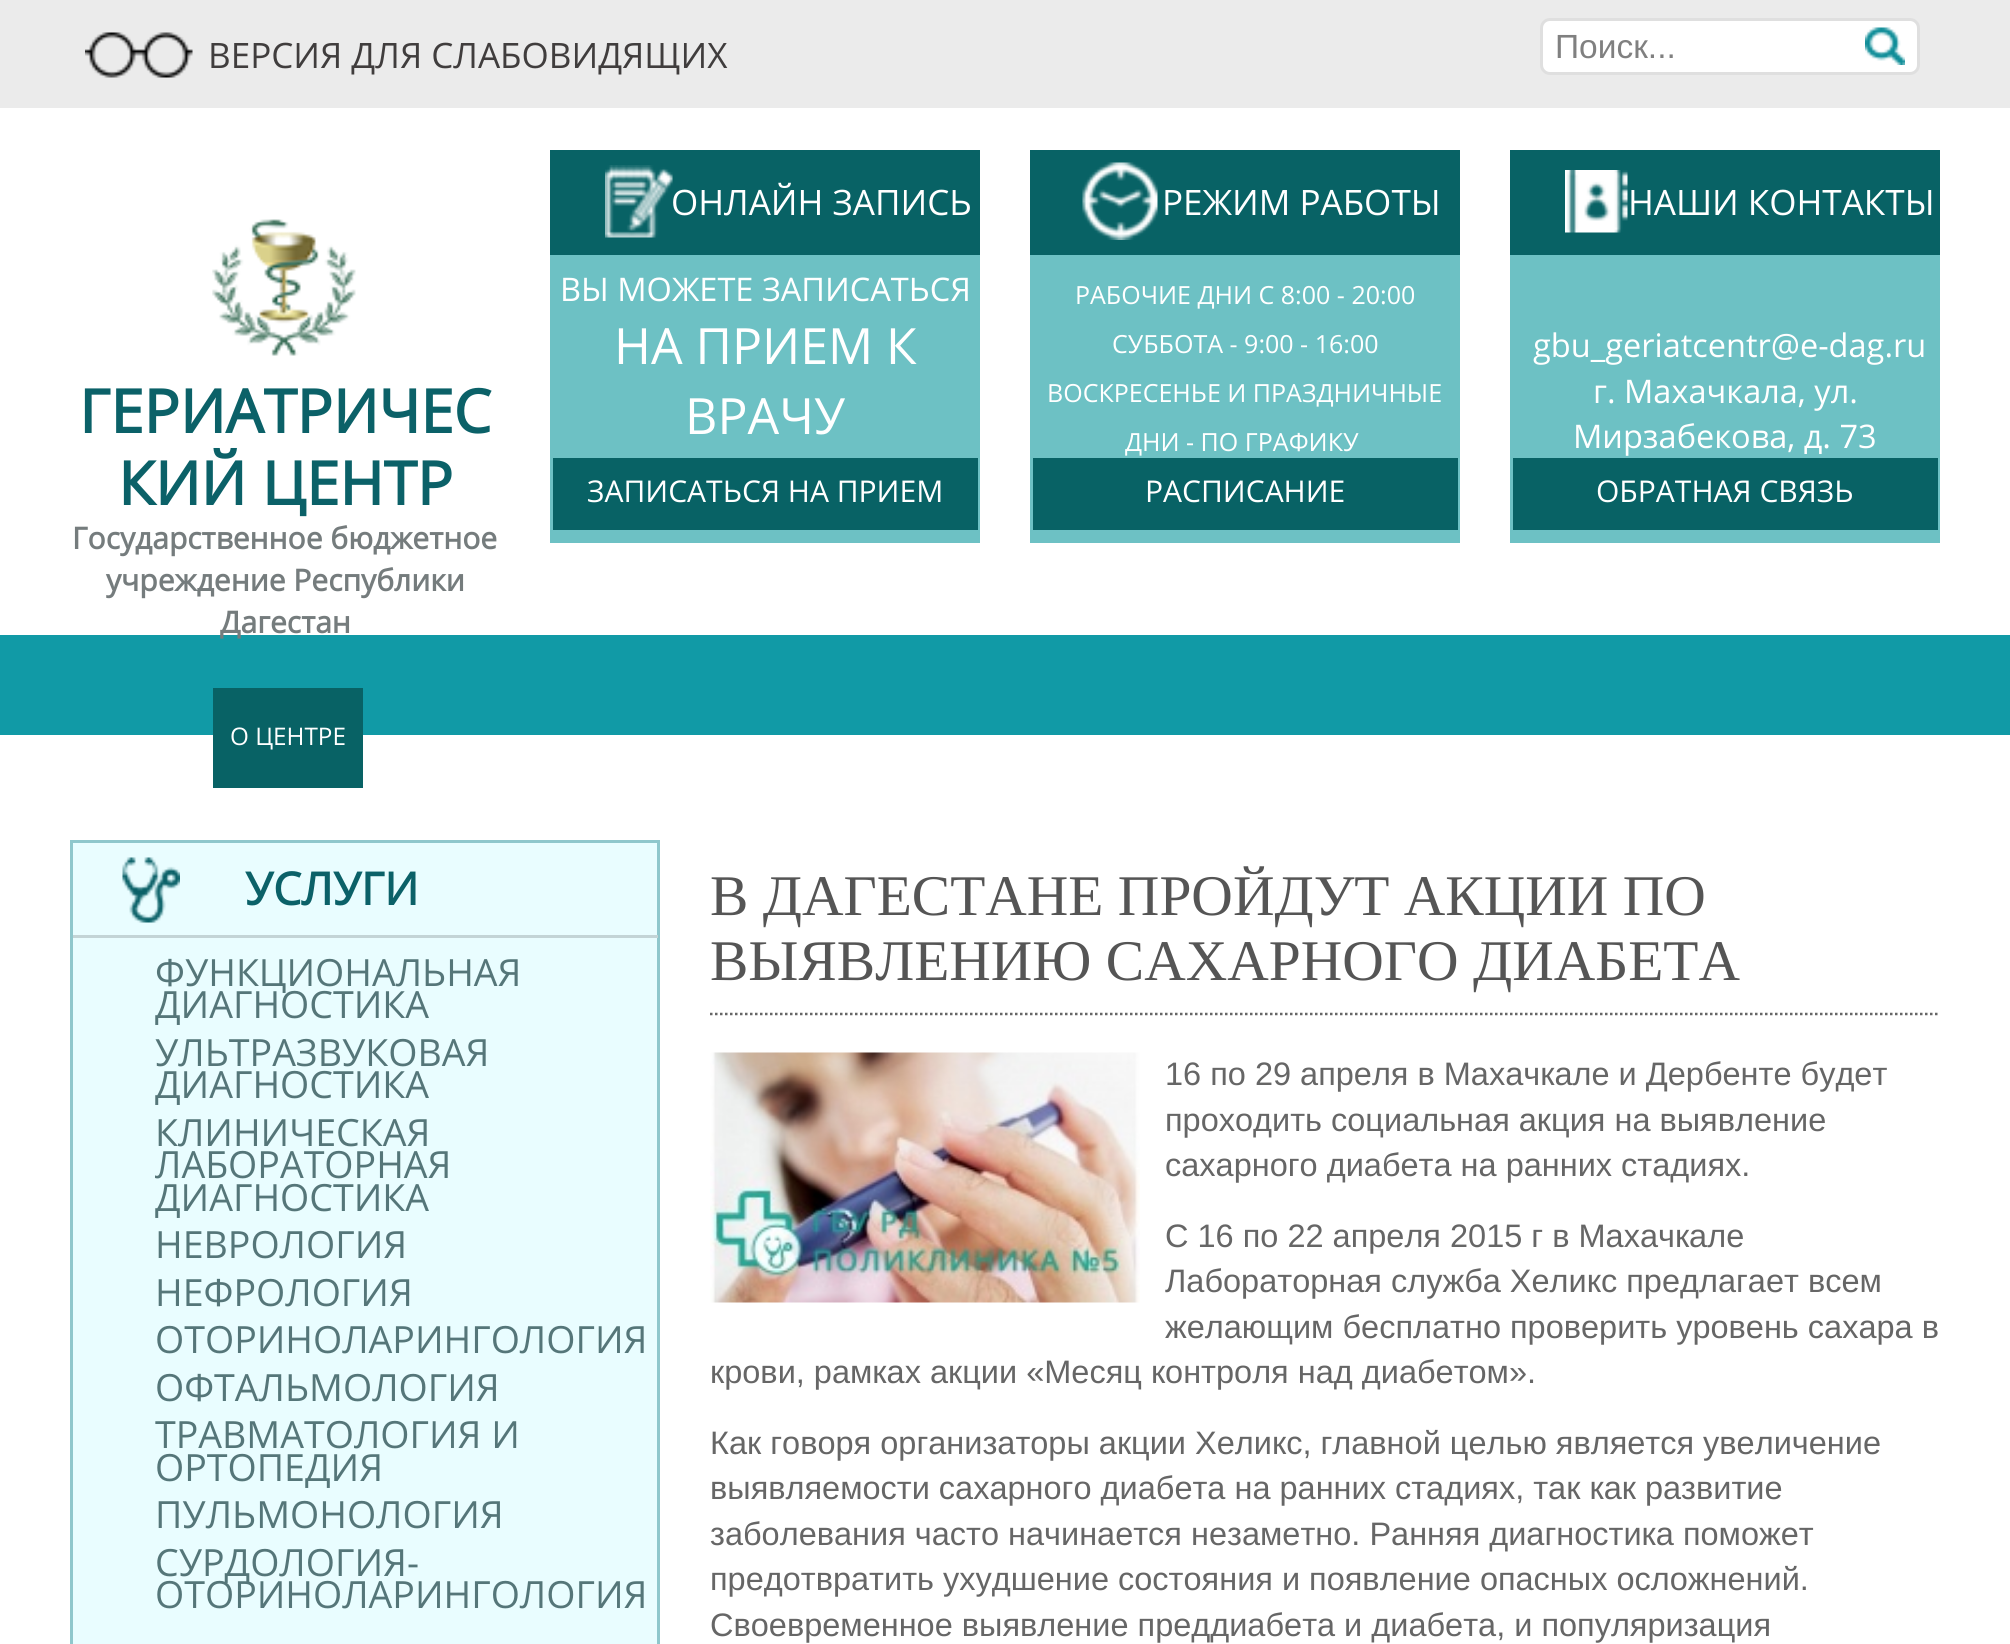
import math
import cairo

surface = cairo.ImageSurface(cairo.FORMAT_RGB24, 2010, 1644)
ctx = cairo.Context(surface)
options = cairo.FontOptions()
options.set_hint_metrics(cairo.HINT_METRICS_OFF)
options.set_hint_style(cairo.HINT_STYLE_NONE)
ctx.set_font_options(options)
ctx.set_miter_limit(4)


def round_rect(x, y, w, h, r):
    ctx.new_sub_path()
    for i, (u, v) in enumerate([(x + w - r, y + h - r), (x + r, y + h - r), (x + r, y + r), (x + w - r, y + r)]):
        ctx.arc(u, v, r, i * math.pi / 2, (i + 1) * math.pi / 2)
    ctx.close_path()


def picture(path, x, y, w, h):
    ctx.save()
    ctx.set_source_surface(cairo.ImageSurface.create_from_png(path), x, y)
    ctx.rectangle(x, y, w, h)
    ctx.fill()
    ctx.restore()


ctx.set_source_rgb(1, 1, 1)
ctx.paint()
ctx.set_source_rgb(0.067, 0.604, 0.651)
ctx.rectangle(0, 635, 2010, 100)
ctx.fill()
ctx.set_source_rgb(0.918, 0.918, 0.918)
ctx.rectangle(0, 0, 2010, 108)
ctx.fill()
picture("img1.png", 85, 32, 108, 46)
ctx.select_font_face("Open Sans")
ctx.set_font_size(35)
ctx.set_source_rgb(0.251, 0.239, 0.239)
ctx.move_to(208, 68)
ctx.show_text("ВЕРСИЯ ДЛЯ СЛАБОВИДЯЩИХ")
ctx.set_source_rgb(1, 1, 1)
round_rect(1541.5, 19.5, 377, 54, 8.5)
ctx.fill_preserve()
ctx.set_source_rgb(0.875, 0.875, 0.875)
ctx.set_line_width(3)
ctx.stroke()
ctx.select_font_face("Liberation Sans")
ctx.set_font_size(33.5)
ctx.set_source_rgb(0.502, 0.502, 0.502)
ctx.move_to(1555, 58)
ctx.show_text("Поиск...")
picture("img2.png", 1865, 27, 40, 38)
picture("img3.png", 212, 219, 144, 137)
ctx.select_font_face("Open Sans", cairo.FONT_SLANT_NORMAL, cairo.FONT_WEIGHT_BOLD)
ctx.set_font_size(60)
ctx.set_source_rgb(0.043, 0.38, 0.408)
ctx.move_to(79, 433)
ctx.show_text("ГЕРИАТРИЧЕС")
ctx.move_to(118, 505)
ctx.show_text("КИЙ ЦЕНТР")
ctx.set_font_size(30)
ctx.set_source_rgb(0.459, 0.486, 0.49)
ctx.move_to(72, 549)
ctx.show_text("Государственное бюджетное")
ctx.move_to(106, 591)
ctx.show_text("учреждение Республики")
ctx.move_to(220, 633)
ctx.show_text("Дагестан")
ctx.set_source_rgb(0.035, 0.384, 0.396)
ctx.rectangle(550, 150, 430, 105)
ctx.fill()
picture("img4.png", 605, 165, 68, 73)
ctx.select_font_face("Open Sans")
ctx.set_font_size(35)
ctx.set_source_rgb(1, 1, 1)
ctx.move_to(671, 215)
ctx.show_text("ОНЛАЙН ЗАПИСЬ")
ctx.set_source_rgb(0.427, 0.757, 0.769)
ctx.rectangle(550, 255, 430, 288)
ctx.fill()
ctx.set_font_size(32.5)
ctx.set_source_rgb(1, 1, 1)
ctx.move_to(560, 301)
ctx.show_text("ВЫ МОЖЕТЕ ЗАПИСАТЬСЯ")
ctx.set_font_size(50)
ctx.move_to(614, 364)
ctx.show_text("НА ПРИЕМ К")
ctx.move_to(685, 434)
ctx.show_text("ВРАЧУ")
ctx.set_source_rgb(0.035, 0.384, 0.396)
ctx.rectangle(553, 458, 425, 72)
ctx.fill()
ctx.set_font_size(30)
ctx.set_source_rgb(1, 1, 1)
ctx.move_to(587, 502)
ctx.show_text("ЗАПИСАТЬСЯ НА ПРИЕМ")
ctx.set_source_rgb(0.035, 0.384, 0.396)
ctx.rectangle(1030, 150, 430, 105)
ctx.fill()
picture("img5.png", 1082, 162, 76, 78)
ctx.set_font_size(35)
ctx.set_source_rgb(1, 1, 1)
ctx.move_to(1162, 215)
ctx.show_text("РЕЖИМ РАБОТЫ")
ctx.set_source_rgb(0.427, 0.757, 0.769)
ctx.rectangle(1030, 255, 430, 288)
ctx.fill()
ctx.set_font_size(25)
ctx.set_source_rgb(1, 1, 1)
ctx.move_to(1075, 304)
ctx.show_text("РАБОЧИЕ ДНИ С 8:00 - 20:00")
ctx.move_to(1112, 353)
ctx.show_text("СУББОТА - 9:00 - 16:00")
ctx.move_to(1047, 402)
ctx.show_text("ВОСКРЕСЕНЬЕ И ПРАЗДНИЧНЫЕ")
ctx.move_to(1125, 451)
ctx.show_text("ДНИ - ПО ГРАФИКУ")
ctx.set_source_rgb(0.035, 0.384, 0.396)
ctx.rectangle(1033, 458, 425, 72)
ctx.fill()
ctx.set_font_size(30)
ctx.set_source_rgb(1, 1, 1)
ctx.move_to(1145, 502)
ctx.show_text("РАСПИСАНИЕ")
ctx.set_source_rgb(0.035, 0.384, 0.396)
ctx.rectangle(1510, 150, 430, 105)
ctx.fill()
picture("img6.png", 1565, 170, 63, 63)
ctx.set_font_size(35)
ctx.set_source_rgb(1, 1, 1)
ctx.move_to(1628, 215)
ctx.show_text("НАШИ КОНТАКТЫ")
ctx.set_source_rgb(0.427, 0.757, 0.769)
ctx.rectangle(1510, 255, 430, 288)
ctx.fill()
ctx.set_font_size(32.5)
ctx.set_source_rgb(1, 1, 1)
ctx.move_to(1533, 357)
ctx.show_text("gbu_geriatcentr@e-dag.ru")
ctx.move_to(1593, 403)
ctx.show_text("г. Махачкала, ул.")
ctx.move_to(1573, 448)
ctx.show_text("Мирзабекова, д. 73")
ctx.set_source_rgb(0.035, 0.384, 0.396)
ctx.rectangle(1513, 458, 425, 72)
ctx.fill()
ctx.set_font_size(30)
ctx.set_source_rgb(1, 1, 1)
ctx.move_to(1596, 502)
ctx.show_text("ОБРАТНАЯ СВЯЗЬ")
ctx.set_source_rgb(0.035, 0.384, 0.396)
ctx.rectangle(213, 688, 150, 100)
ctx.fill()
ctx.set_font_size(24.25)
ctx.set_source_rgb(1, 1, 1)
ctx.move_to(230, 745)
ctx.show_text("О ЦЕНТРЕ")
ctx.set_source_rgb(0.914, 0.992, 1)
ctx.rectangle(71.5, 841.5, 587, 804)
ctx.fill_preserve()
ctx.set_source_rgb(0.561, 0.78, 0.8)
ctx.stroke()
picture("img7.png", 122, 857, 58, 66)
ctx.set_source_rgb(0.765, 0.831, 0.839)
ctx.rectangle(73, 935, 585, 3)
ctx.fill()
ctx.select_font_face("Open Sans", cairo.FONT_SLANT_NORMAL, cairo.FONT_WEIGHT_BOLD)
ctx.set_font_size(45)
ctx.set_source_rgb(0.043, 0.38, 0.408)
ctx.move_to(245, 905)
ctx.show_text("УСЛУГИ")
ctx.select_font_face("Open Sans")
ctx.set_font_size(37.5)
ctx.set_source_rgb(0.333, 0.463, 0.475)
ctx.move_to(155, 986)
ctx.show_text("ФУНКЦИОНАЛЬНАЯ")
ctx.move_to(155, 1018)
ctx.show_text("ДИАГНОСТИКА")
ctx.move_to(155, 1066)
ctx.show_text("УЛЬТРАЗВУКОВАЯ")
ctx.move_to(155, 1098)
ctx.show_text("ДИАГНОСТИКА")
ctx.move_to(155, 1146)
ctx.show_text("КЛИНИЧЕСКАЯ")
ctx.move_to(155, 1178)
ctx.show_text("ЛАБОРАТОРНАЯ")
ctx.move_to(155, 1211)
ctx.show_text("ДИАГНОСТИКА")
ctx.move_to(155, 1258)
ctx.show_text("НЕВРОЛОГИЯ")
ctx.move_to(155, 1306)
ctx.show_text("НЕФРОЛОГИЯ")
ctx.move_to(155, 1353)
ctx.show_text("ОТОРИНОЛАРИНГОЛОГИЯ")
ctx.move_to(155, 1401)
ctx.show_text("ОФТАЛЬМОЛОГИЯ")
ctx.move_to(155, 1448)
ctx.show_text("ТРАВМАТОЛОГИЯ И")
ctx.move_to(155, 1481)
ctx.show_text("ОРТОПЕДИЯ")
ctx.move_to(155, 1528)
ctx.show_text("ПУЛЬМОНОЛОГИЯ")
ctx.move_to(155, 1576)
ctx.show_text("СУРДОЛОГИЯ-")
ctx.move_to(155, 1608)
ctx.show_text("ОТОРИНОЛАРИНГОЛОГИЯ")
ctx.new_path()
ctx.move_to(710, 1014)
ctx.line_to(1940, 1014)
ctx.set_source_rgb(0.4, 0.4, 0.4)
ctx.set_line_width(2.5)
ctx.set_dash([2.5, 2.5])
ctx.stroke()
ctx.select_font_face("Liberation Serif")
ctx.set_font_size(57.5)
ctx.set_source_rgb(0.333, 0.333, 0.333)
ctx.move_to(710, 915)
ctx.show_text("В ДАГЕСТАНЕ ПРОЙДУТ АКЦИИ ПО")
ctx.move_to(710, 980)
ctx.show_text("ВЫЯВЛЕНИЮ САХАРНОГО ДИАБЕТА")
picture("img8.png", 710, 1052, 430, 251)
ctx.select_font_face("Liberation Sans")
ctx.set_font_size(32.5)
ctx.set_source_rgb(0.4, 0.4, 0.4)
ctx.move_to(1165, 1085)
ctx.show_text("16 по 29 апреля в Махачкале и Дербенте будет")
ctx.move_to(1165, 1131)
ctx.show_text("проходить социальная акция на выявление")
ctx.move_to(1165, 1176)
ctx.show_text("сахарного диабета на ранних стадиях.")
ctx.move_to(1165, 1247)
ctx.show_text("С 16 по 22 апреля 2015 г в Махачкале")
ctx.move_to(1165, 1292)
ctx.show_text("Лабораторная служба Хеликс предлагает всем")
ctx.move_to(1165, 1338)
ctx.show_text("желающим бесплатно проверить уровень сахара в")
ctx.move_to(710, 1383)
ctx.show_text("крови, рамках акции «Месяц контроля над диабетом».")
ctx.move_to(710, 1454)
ctx.show_text("Как говоря организаторы акции Хеликс, главной целью является увеличение")
ctx.move_to(710, 1499)
ctx.show_text("выявляемости сахарного диабета на ранних стадиях, так как развитие")
ctx.move_to(710, 1545)
ctx.show_text("заболевания часто начинается незаметно. Ранняя диагностика поможет")
ctx.move_to(710, 1590)
ctx.show_text("предотвратить ухудшение состояния и появление опасных осложнений.")
ctx.move_to(710, 1636)
ctx.show_text("Своевременное выявление преддиабета и диабета, и популяризация")
surface.write_to_png("page.png")
